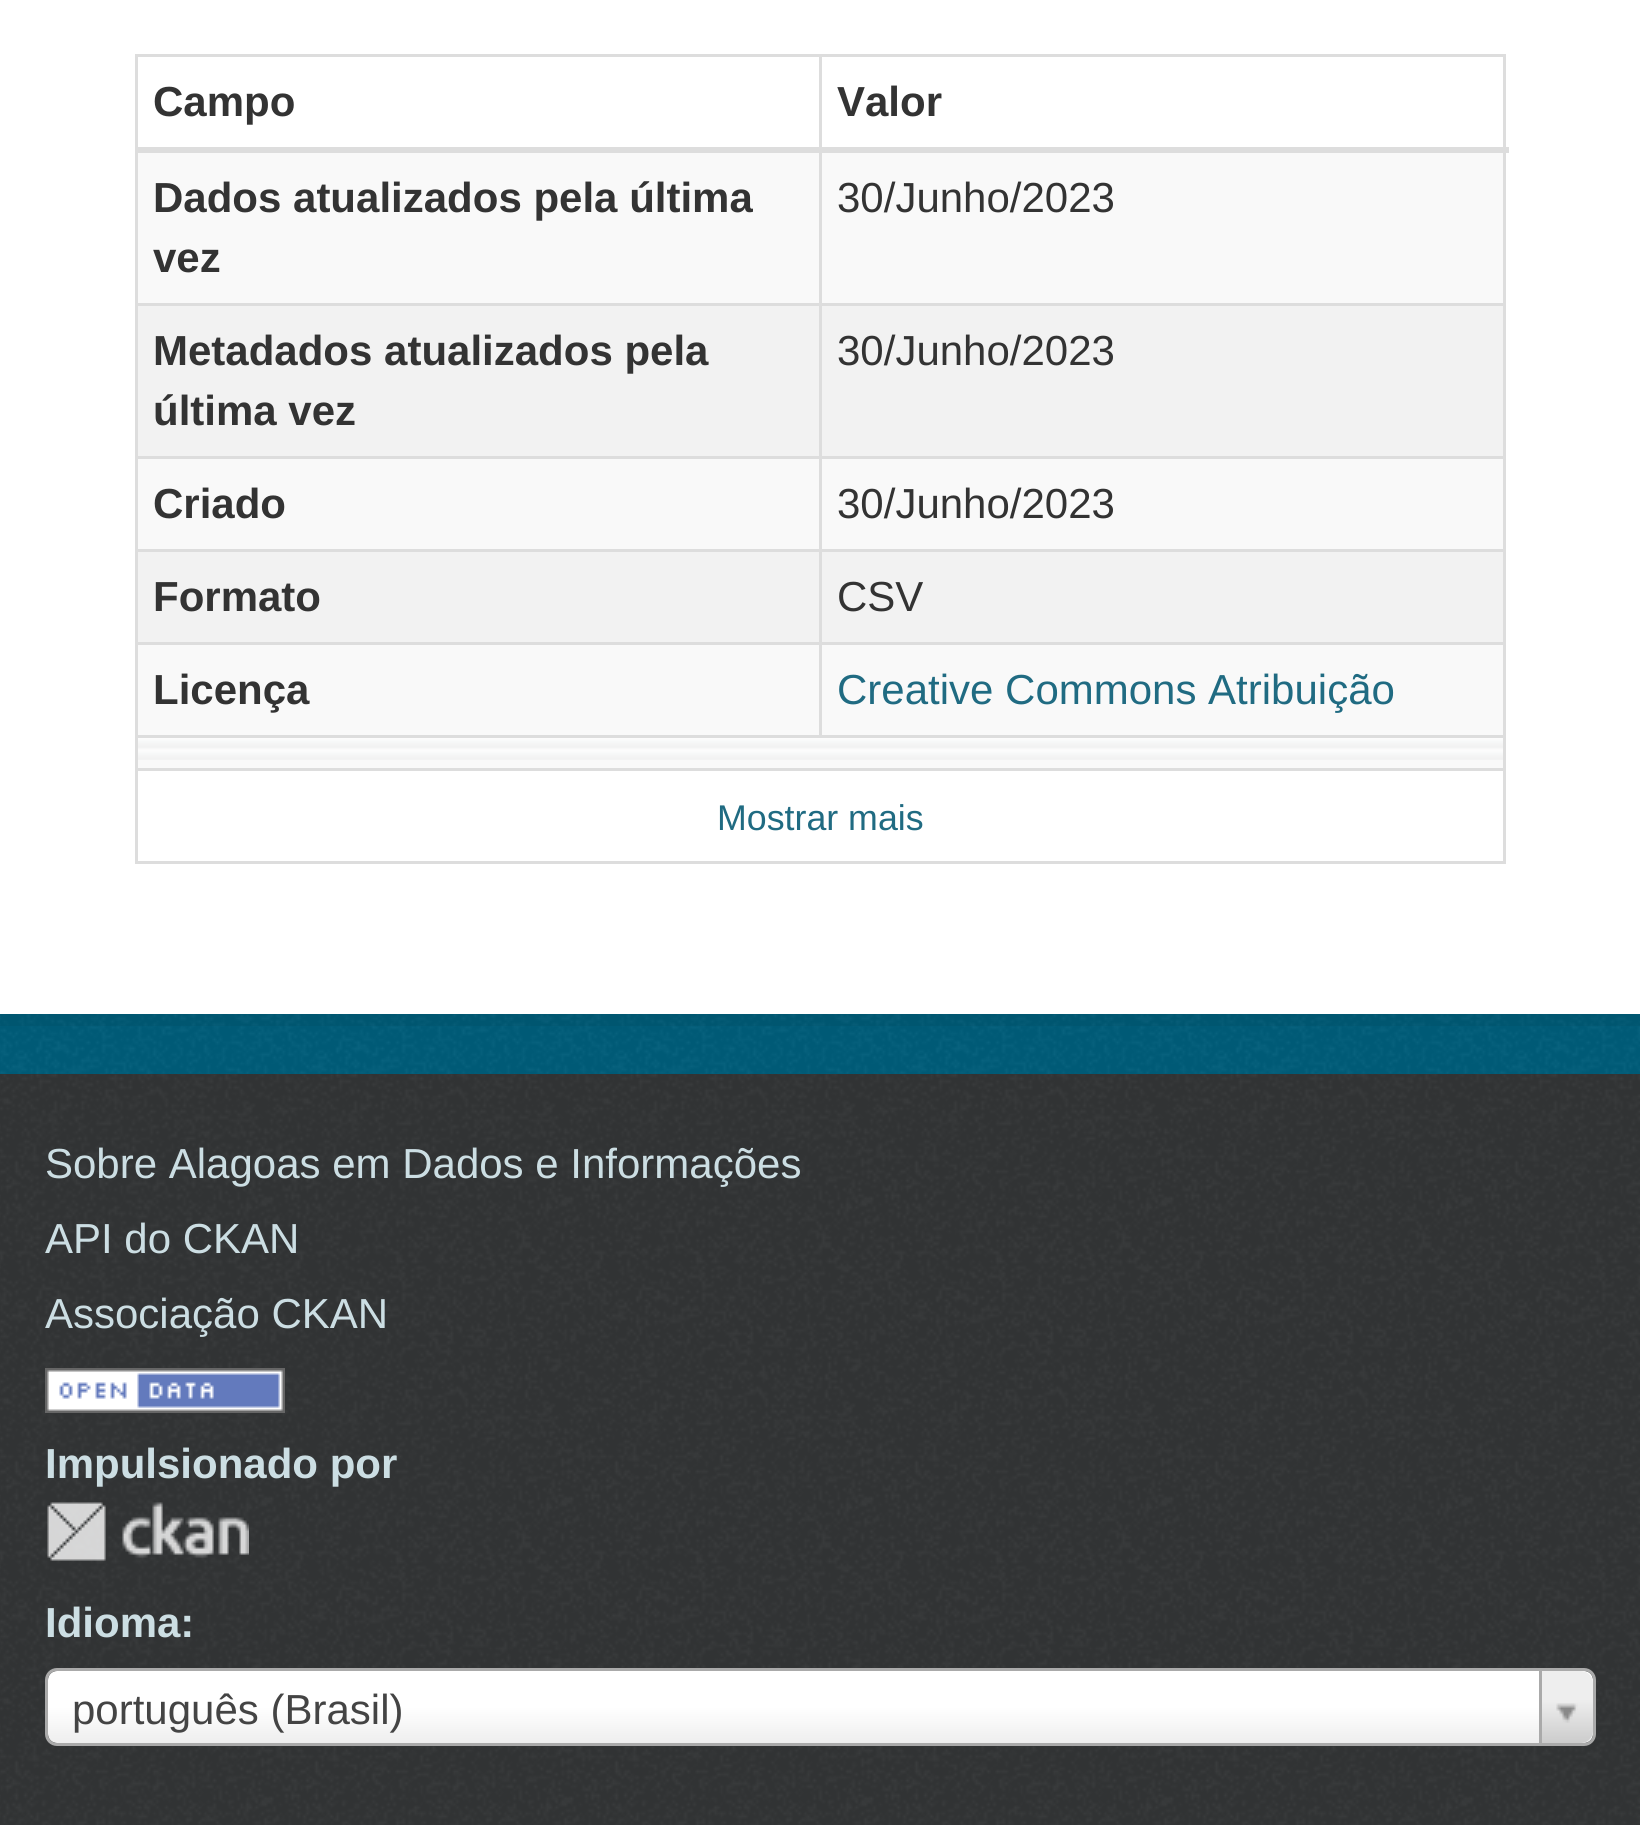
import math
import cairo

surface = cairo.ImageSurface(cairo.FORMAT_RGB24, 1640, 1825)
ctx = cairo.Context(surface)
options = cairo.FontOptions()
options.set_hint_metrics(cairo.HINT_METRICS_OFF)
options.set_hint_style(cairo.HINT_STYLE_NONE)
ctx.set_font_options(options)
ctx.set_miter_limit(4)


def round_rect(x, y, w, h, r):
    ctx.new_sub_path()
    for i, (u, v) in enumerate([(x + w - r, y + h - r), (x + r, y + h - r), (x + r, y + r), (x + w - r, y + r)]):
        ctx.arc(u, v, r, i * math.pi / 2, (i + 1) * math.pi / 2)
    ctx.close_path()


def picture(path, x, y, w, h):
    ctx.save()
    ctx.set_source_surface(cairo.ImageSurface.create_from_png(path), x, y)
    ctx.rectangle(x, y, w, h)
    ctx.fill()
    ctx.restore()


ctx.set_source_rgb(0, 0.365, 0.478)
ctx.paint()
picture("img1.png", 0, 1014, 1640, 60)
ctx.rectangle(-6, -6, 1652, 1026)
ctx.set_source_rgba(0, 0, 0, 0.05)
ctx.set_line_width(12)
ctx.stroke()
ctx.set_source_rgb(1, 1, 1)
ctx.rectangle(0, 0, 1640, 1014)
ctx.fill()
ctx.set_source_rgb(0.867, 0.867, 0.867)
ctx.rectangle(135, 54, 1371, 3)
ctx.fill()
ctx.rectangle(1503, 54, 3, 810)
ctx.fill()
ctx.rectangle(135, 861, 1371, 3)
ctx.fill()
ctx.rectangle(135, 54, 3, 810)
ctx.fill()
ctx.select_font_face("Liberation Sans", cairo.FONT_SLANT_NORMAL, cairo.FONT_WEIGHT_BOLD)
ctx.set_font_size(42)
ctx.set_source_rgb(0.2, 0.2, 0.2)
ctx.move_to(153, 116)
ctx.show_text("Campo")
ctx.set_source_rgb(0.976, 0.976, 0.976)
ctx.rectangle(138, 153, 1365, 150)
ctx.fill()
ctx.set_source_rgb(0.867, 0.867, 0.867)
ctx.rectangle(819, 303, 687, 3)
ctx.fill()
ctx.rectangle(819, 456, 687, 3)
ctx.fill()
ctx.set_source_rgb(0.976, 0.976, 0.976)
ctx.rectangle(138, 459, 1365, 90)
ctx.fill()
ctx.set_source_rgb(0.867, 0.867, 0.867)
ctx.rectangle(819, 549, 687, 3)
ctx.fill()
ctx.rectangle(819, 642, 687, 3)
ctx.fill()
ctx.set_source_rgb(0.976, 0.976, 0.976)
ctx.rectangle(138, 645, 1365, 90)
ctx.fill()
ctx.set_source_rgb(0.867, 0.867, 0.867)
ctx.rectangle(135, 735, 1371, 3)
ctx.fill()
ctx.rectangle(819, 642, 3, 96)
ctx.fill()
ctx.rectangle(135, 642, 687, 3)
ctx.fill()
ctx.rectangle(819, 549, 3, 96)
ctx.fill()
ctx.rectangle(135, 549, 687, 3)
ctx.fill()
ctx.rectangle(819, 456, 3, 96)
ctx.fill()
ctx.rectangle(135, 456, 687, 3)
ctx.fill()
ctx.rectangle(819, 303, 3, 156)
ctx.fill()
ctx.rectangle(135, 303, 687, 3)
ctx.fill()
ctx.rectangle(819, 54, 3, 252)
ctx.fill()
ctx.rectangle(135, 147, 1374, 6)
ctx.fill()
ctx.set_source_rgb(0.2, 0.2, 0.2)
ctx.move_to(837, 116)
ctx.show_text("Valor")
ctx.move_to(153, 212)
ctx.show_text("Dados atualizados pela última")
ctx.move_to(153, 272)
ctx.show_text("vez")
ctx.select_font_face("Liberation Sans")
ctx.move_to(837, 212)
ctx.show_text("30/Junho/2023")
ctx.set_source_rgb(0.949, 0.949, 0.949)
ctx.rectangle(138, 306, 681, 150)
ctx.fill()
ctx.select_font_face("Liberation Sans", cairo.FONT_SLANT_NORMAL, cairo.FONT_WEIGHT_BOLD)
ctx.set_source_rgb(0.2, 0.2, 0.2)
ctx.move_to(153, 365)
ctx.show_text("Metadados atualizados pela")
ctx.move_to(153, 425)
ctx.show_text("última vez")
ctx.set_source_rgb(0.949, 0.949, 0.949)
ctx.rectangle(822, 306, 681, 150)
ctx.fill()
ctx.select_font_face("Liberation Sans")
ctx.set_source_rgb(0.2, 0.2, 0.2)
ctx.move_to(837, 365)
ctx.show_text("30/Junho/2023")
ctx.select_font_face("Liberation Sans", cairo.FONT_SLANT_NORMAL, cairo.FONT_WEIGHT_BOLD)
ctx.move_to(153, 518)
ctx.show_text("Criado")
ctx.select_font_face("Liberation Sans")
ctx.move_to(837, 518)
ctx.show_text("30/Junho/2023")
ctx.set_source_rgb(0.949, 0.949, 0.949)
ctx.rectangle(138, 552, 681, 90)
ctx.fill()
ctx.select_font_face("Liberation Sans", cairo.FONT_SLANT_NORMAL, cairo.FONT_WEIGHT_BOLD)
ctx.set_source_rgb(0.2, 0.2, 0.2)
ctx.move_to(153, 611)
ctx.show_text("Formato")
ctx.set_source_rgb(0.949, 0.949, 0.949)
ctx.rectangle(822, 552, 681, 90)
ctx.fill()
ctx.select_font_face("Liberation Sans")
ctx.set_source_rgb(0.2, 0.2, 0.2)
ctx.move_to(837, 611)
ctx.show_text("CSV")
ctx.select_font_face("Liberation Sans", cairo.FONT_SLANT_NORMAL, cairo.FONT_WEIGHT_BOLD)
ctx.move_to(153, 704)
ctx.show_text("Licença")
ctx.select_font_face("Liberation Sans")
ctx.set_source_rgb(0.125, 0.42, 0.51)
ctx.move_to(837, 704)
ctx.show_text("Creative Commons Atribuição")
ctx.set_source_rgb(0.976, 0.976, 0.976)
ctx.rectangle(138, 760, 1365, 8)
ctx.fill()
picture("img2.png", 138, 738, 1365, 22)
ctx.set_source_rgb(0.867, 0.867, 0.867)
ctx.rectangle(135, 768, 1371, 3)
ctx.fill()
ctx.set_font_size(35.75)
ctx.set_source_rgb(0.125, 0.42, 0.51)
ctx.move_to(717, 830)
ctx.show_text("Mostrar mais")
ctx.set_source_rgb(0.2, 0.208, 0.212)
ctx.rectangle(0, 1074, 1640, 751)
ctx.fill()
picture("img3.png", 0, 1074, 1640, 751)
ctx.set_font_size(42)
ctx.set_source_rgb(0.8, 0.871, 0.89)
ctx.move_to(45, 1178)
ctx.show_text("Sobre Alagoas em Dados e Informações")
ctx.move_to(45, 1253)
ctx.show_text("API do CKAN")
ctx.move_to(45, 1328)
ctx.show_text("Associação CKAN")
picture("img4.png", 45, 1368, 240, 45)
ctx.select_font_face("Liberation Sans", cairo.FONT_SLANT_NORMAL, cairo.FONT_WEIGHT_BOLD)
ctx.move_to(45, 1478)
ctx.show_text("Impulsionado por")
picture("img5.png", 47, 1502, 202, 59)
ctx.move_to(45, 1637)
ctx.show_text("Idioma:")
gradient = cairo.LinearGradient(821, 1743, 821, 1671)
gradient.add_color_stop_rgba(0, 0.933, 0.933, 0.933, 1)
gradient.add_color_stop_rgba(0.5, 1, 1, 1, 1)
ctx.set_source(gradient)
round_rect(48, 1671, 1545, 72, 9)
ctx.fill()
round_rect(46.5, 1669.5, 1548, 75, 10.5)
ctx.set_source_rgb(0.667, 0.667, 0.667)
ctx.set_line_width(3)
ctx.stroke()
ctx.select_font_face("Liberation Sans")
ctx.set_source_rgb(0.267, 0.267, 0.267)
ctx.move_to(72, 1724)
ctx.show_text("português (Brasil)")
gradient = cairo.LinearGradient(1568, 1743, 1568, 1671)
gradient.add_color_stop_rgba(0, 0.8, 0.8, 0.8, 1)
gradient.add_color_stop_rgba(0.6, 0.933, 0.933, 0.933, 1)
ctx.set_source(gradient)
ctx.new_path()
ctx.move_to(1539, 1671)
ctx.line_to(1581, 1671)
ctx.curve_to(1587.5, 1671, 1593, 1676.5, 1593, 1683)
ctx.line_to(1593, 1731)
ctx.curve_to(1593, 1737.5, 1587.5, 1743, 1581, 1743)
ctx.line_to(1539, 1743)
ctx.close_path()
ctx.fill()
ctx.set_source_rgb(0.667, 0.667, 0.667)
ctx.rectangle(1539, 1671, 3, 72)
ctx.fill()
picture("img6.png", 1556, 1703, 22, 20)
surface.write_to_png("page.png")
